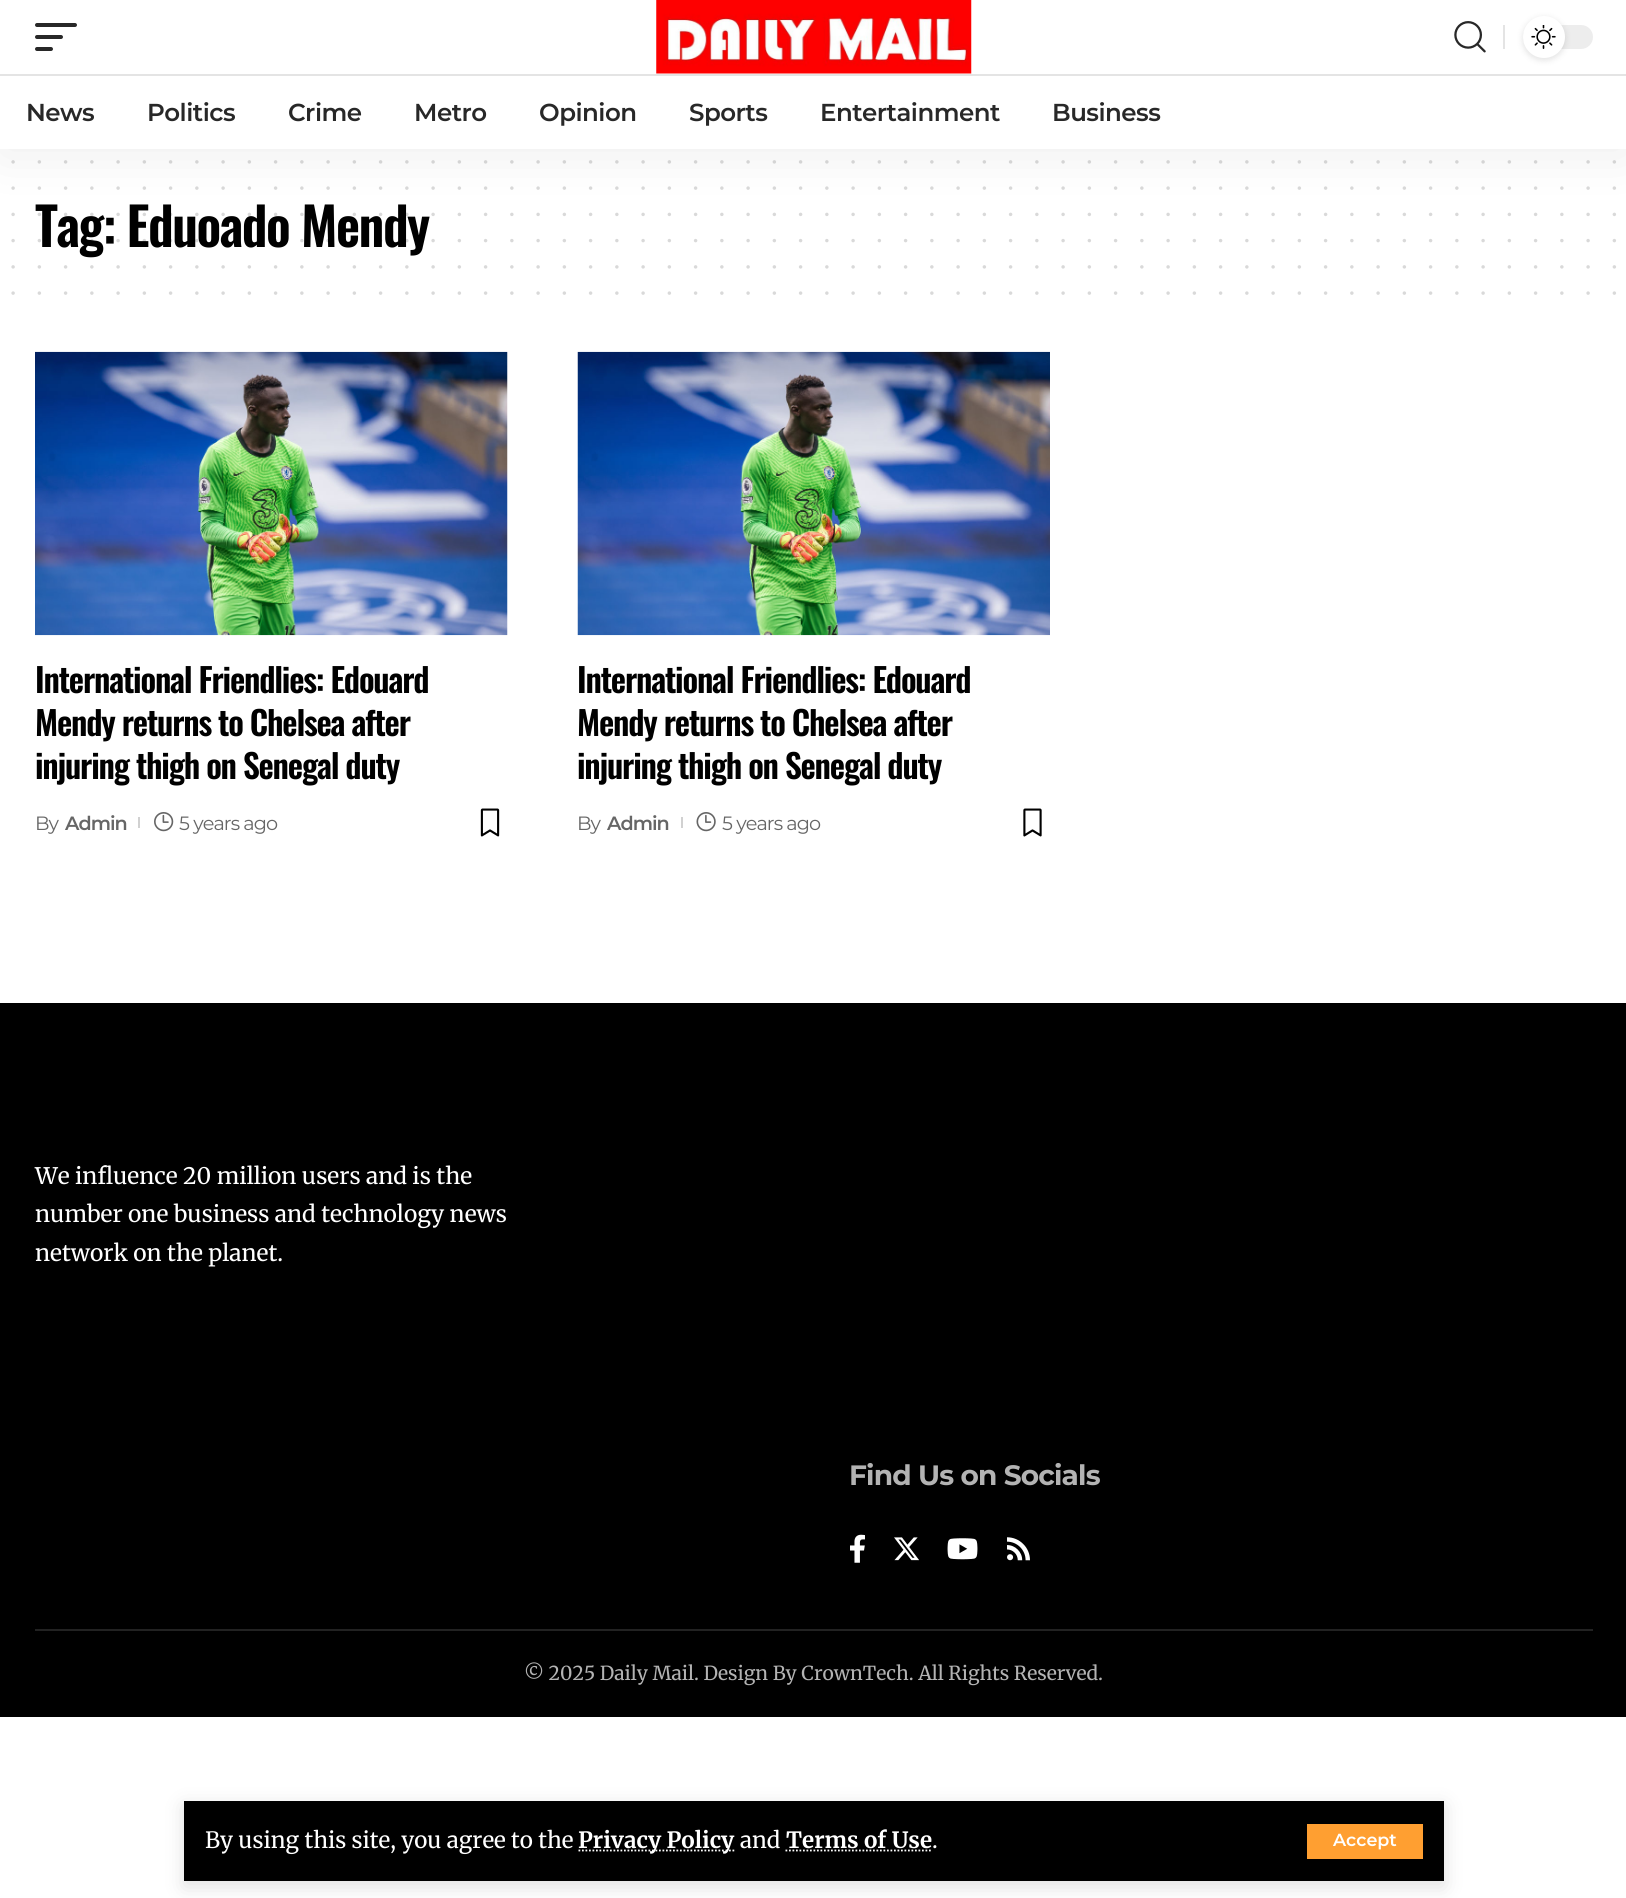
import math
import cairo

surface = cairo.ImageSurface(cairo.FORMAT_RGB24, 1626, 1898)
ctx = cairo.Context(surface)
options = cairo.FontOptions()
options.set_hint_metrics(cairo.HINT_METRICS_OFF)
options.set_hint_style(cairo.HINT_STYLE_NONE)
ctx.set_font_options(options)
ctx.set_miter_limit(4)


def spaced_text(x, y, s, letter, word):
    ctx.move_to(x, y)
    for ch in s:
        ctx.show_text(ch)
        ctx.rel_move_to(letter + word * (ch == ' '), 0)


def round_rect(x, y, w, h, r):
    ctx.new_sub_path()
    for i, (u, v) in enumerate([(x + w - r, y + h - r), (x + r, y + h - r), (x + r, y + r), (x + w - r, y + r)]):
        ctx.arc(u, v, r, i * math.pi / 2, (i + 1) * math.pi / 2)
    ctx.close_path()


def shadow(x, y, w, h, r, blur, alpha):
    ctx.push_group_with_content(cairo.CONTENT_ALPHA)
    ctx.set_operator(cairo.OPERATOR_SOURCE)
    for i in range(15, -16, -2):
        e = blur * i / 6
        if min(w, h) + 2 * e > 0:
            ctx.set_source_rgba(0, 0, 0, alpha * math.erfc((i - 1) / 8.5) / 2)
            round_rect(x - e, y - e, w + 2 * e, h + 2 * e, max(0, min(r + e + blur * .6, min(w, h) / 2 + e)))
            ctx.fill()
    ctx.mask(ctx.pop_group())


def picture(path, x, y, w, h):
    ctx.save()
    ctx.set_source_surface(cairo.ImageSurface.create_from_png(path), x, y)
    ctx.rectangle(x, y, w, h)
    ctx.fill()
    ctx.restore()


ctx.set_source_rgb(1, 1, 1)
ctx.paint()
ctx.new_path()
ctx.move_to(13.1, 161.9)
ctx.line_to(1614.7, 161.9)
ctx.set_source_rgb(0.851, 0.851, 0.851)
ctx.set_line_width(3.5)
ctx.set_line_cap(cairo.LINE_CAP_ROUND)
ctx.set_dash([0, 26.25])
ctx.stroke()
ctx.new_path()
ctx.move_to(13.1, 188.1)
ctx.line_to(1614.7, 188.1)
ctx.stroke()
ctx.select_font_face("Oswald SemiBold")
ctx.set_font_size(52.5)
ctx.set_source_rgb(0, 0, 0)
spaced_text(35, 247, "Tag: Eduoado Mendy", -1.5, 0)
ctx.new_path()
ctx.move_to(13.1, 214.4)
ctx.line_to(1614.7, 214.4)
ctx.set_source_rgba(0, 0, 0, 0.15)
ctx.stroke()
ctx.set_source_rgb(0, 0, 0)
shadow(0, 7, 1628, 149, 0, 26, 0.07)
ctx.set_source_rgb(1, 1, 1)
ctx.rectangle(0, 0, 1626, 149)
ctx.fill()
ctx.set_source_rgb(0.157, 0.157, 0.157)
round_rect(35, 23, 42, 4, 2)
ctx.fill()
round_rect(35, 35, 28, 4, 2)
ctx.fill()
round_rect(35, 47, 18, 4, 2)
ctx.fill()
picture("img1.png", 656, 0, 316, 74)
picture("img2.png", 1454, 21, 32, 32)
ctx.set_source_rgb(0.894, 0.894, 0.894)
ctx.rectangle(1503, 25, 2, 24)
ctx.fill()
ctx.set_source_rgb(0.929, 0.929, 0.929)
round_rect(1523, 25, 70, 24, 12)
ctx.fill()
ctx.set_source_rgb(0, 0, 0)
shadow(1523, 18, 42, 42, 21, 3.5, 0.12)
ctx.set_source_rgb(1, 1, 1)
ctx.arc(1544, 37, 21, 0, 2 * math.pi)
ctx.fill()
picture("img3.png", 1531, 25, 25, 24)
ctx.set_source_rgb(0.894, 0.894, 0.894)
ctx.rectangle(0, 74, 1626, 2)
ctx.fill()
ctx.select_font_face("Montserrat SemiBold")
ctx.set_font_size(24.5)
ctx.set_source_rgb(0.157, 0.157, 0.157)
spaced_text(26, 121, "News", -0.5, 0)
spaced_text(147, 121, "Politics", -0.5, 0)
spaced_text(288, 121, "Crime", -0.5, 0)
spaced_text(414, 121, "Metro", -0.5, 0)
spaced_text(539, 121, "Opinion", -0.5, 0)
spaced_text(689, 121, "Sports", -0.5, 0)
spaced_text(820, 121, "Entertainment", -0.5, 0)
spaced_text(1052, 121, "Business", -0.5, 0)
ctx.set_source_rgb(0, 0, 0)
shadow(184, 1806, 1260, 81, 0, 10.5, 0.12)
ctx.set_source_rgb(0, 0, 0)
ctx.rectangle(184, 1801, 1260, 80)
ctx.fill()
ctx.select_font_face("Merriweather")
ctx.set_font_size(22.4)
ctx.set_source_rgb(1, 1, 1)
ctx.move_to(205, 1848)
ctx.show_text("By using this site, you agree to the")
ctx.new_path()
ctx.move_to(578.5, 1850.5)
ctx.line_to(735, 1850.5)
ctx.set_line_width(1.8)
ctx.set_line_cap(cairo.LINE_CAP_BUTT)
ctx.set_dash([1.75, 1.75])
ctx.stroke()
ctx.select_font_face("Merriweather", cairo.FONT_SLANT_NORMAL, cairo.FONT_WEIGHT_BOLD)
ctx.move_to(578, 1848)
ctx.show_text("Privacy Policy")
ctx.select_font_face("Merriweather")
ctx.move_to(740, 1848)
ctx.show_text("and")
ctx.select_font_face("Merriweather", cairo.FONT_SLANT_NORMAL, cairo.FONT_WEIGHT_BOLD)
ctx.move_to(786, 1848)
ctx.show_text("Terms of Use")
ctx.new_path()
ctx.move_to(785.5, 1850.5)
ctx.line_to(931.5, 1850.5)
ctx.stroke()
ctx.select_font_face("Merriweather")
ctx.move_to(932, 1848)
ctx.show_text(".")
ctx.set_source_rgb(1, 0.624, 0.192)
ctx.rectangle(1307, 1824, 116, 35)
ctx.fill()
ctx.select_font_face("Montserrat SemiBold")
ctx.set_font_size(17.5)
ctx.set_source_rgb(1, 1, 1)
ctx.move_to(1333, 1846)
ctx.show_text("Accept")
ctx.new_path()
ctx.move_to(13.1, 240.6)
ctx.line_to(1614.7, 240.6)
ctx.set_source_rgba(0, 0, 0, 0.15)
ctx.set_line_width(3.5)
ctx.set_line_cap(cairo.LINE_CAP_ROUND)
ctx.set_dash([0, 26.25])
ctx.stroke()
ctx.new_path()
ctx.move_to(13.1, 266.9)
ctx.line_to(1614.7, 266.9)
ctx.set_source_rgb(0.851, 0.851, 0.851)
ctx.stroke()
ctx.new_path()
ctx.move_to(13.1, 293.1)
ctx.line_to(1614.7, 293.1)
ctx.stroke()
picture("img4.png", 35, 351, 473, 285)
ctx.select_font_face("Oswald SemiBold")
ctx.set_font_size(33.25)
ctx.set_source_rgb(0, 0, 0)
spaced_text(35, 693, "International Friendlies: Edouard", -1.2, 0)
spaced_text(35, 736, "Mendy returns to Chelsea after", -1.2, 0)
spaced_text(35, 779, "injuring thigh on Senegal duty", -1.2, 0)
ctx.select_font_face("Montserrat")
ctx.set_font_size(19.25)
ctx.set_source_rgb(0.4, 0.4, 0.4)
spaced_text(35, 830, "By", -0.9, 0)
ctx.select_font_face("Montserrat SemiBold")
spaced_text(65, 830, "Admin", -1, 0)
ctx.set_source_rgb(0.82, 0.82, 0.82)
ctx.rectangle(138, 817, 2, 11)
ctx.fill()
picture("img5.png", 154, 812, 20, 20)
ctx.select_font_face("Montserrat")
ctx.set_source_rgb(0.4, 0.4, 0.4)
spaced_text(179, 830, "5 years ago", -0.9, 0)
picture("img6.png", 480, 808, 20, 29)
picture("img7.png", 577, 351, 473, 285)
ctx.select_font_face("Oswald SemiBold")
ctx.set_font_size(33.25)
ctx.set_source_rgb(0, 0, 0)
spaced_text(577, 693, "International Friendlies: Edouard", -1.2, 0)
spaced_text(577, 736, "Mendy returns to Chelsea after", -1.2, 0)
spaced_text(577, 779, "injuring thigh on Senegal duty", -1.2, 0)
ctx.select_font_face("Montserrat")
ctx.set_font_size(19.25)
ctx.set_source_rgb(0.4, 0.4, 0.4)
spaced_text(577, 830, "By", -0.9, 0)
ctx.select_font_face("Montserrat SemiBold")
spaced_text(607, 830, "Admin", -1, 0)
ctx.set_source_rgb(0.82, 0.82, 0.82)
ctx.rectangle(681, 817, 2, 11)
ctx.fill()
picture("img8.png", 696, 812, 20, 20)
ctx.select_font_face("Montserrat")
ctx.set_source_rgb(0.4, 0.4, 0.4)
spaced_text(722, 830, "5 years ago", -0.9, 0)
picture("img9.png", 1023, 808, 19, 29)
ctx.set_source_rgb(0, 0, 0)
ctx.rectangle(0, 1003, 1626, 714)
ctx.fill()
ctx.select_font_face("Merriweather")
ctx.set_font_size(22.75)
ctx.set_source_rgb(1, 1, 1)
ctx.move_to(35, 1184)
ctx.show_text("We influence 20 million users and is the")
ctx.move_to(35, 1222)
ctx.show_text("number one business and technology news")
ctx.move_to(35, 1261)
ctx.show_text("network on the planet.")
ctx.select_font_face("Montserrat", cairo.FONT_SLANT_NORMAL, cairo.FONT_WEIGHT_BOLD)
ctx.set_font_size(28)
ctx.set_source_rgb(0.702, 0.702, 0.702)
spaced_text(849, 1485, "Find Us on Socials", -0.8, 0)
picture("img10.png", 850, 1534, 15, 29)
picture("img11.png", 894, 1537, 25, 24)
picture("img12.png", 947, 1538, 31, 22)
picture("img13.png", 1007, 1537, 23, 24)
ctx.set_source_rgb(0.133, 0.133, 0.133)
ctx.rectangle(35, 1629, 1558, 2)
ctx.fill()
ctx.select_font_face("Merriweather")
ctx.set_font_size(19.25)
ctx.set_source_rgb(0.702, 0.702, 0.702)
ctx.move_to(524, 1680)
ctx.show_text("© 2025 Daily Mail. Design By CrownTech. All Rights Reserved.")
surface.write_to_png("page.png")
